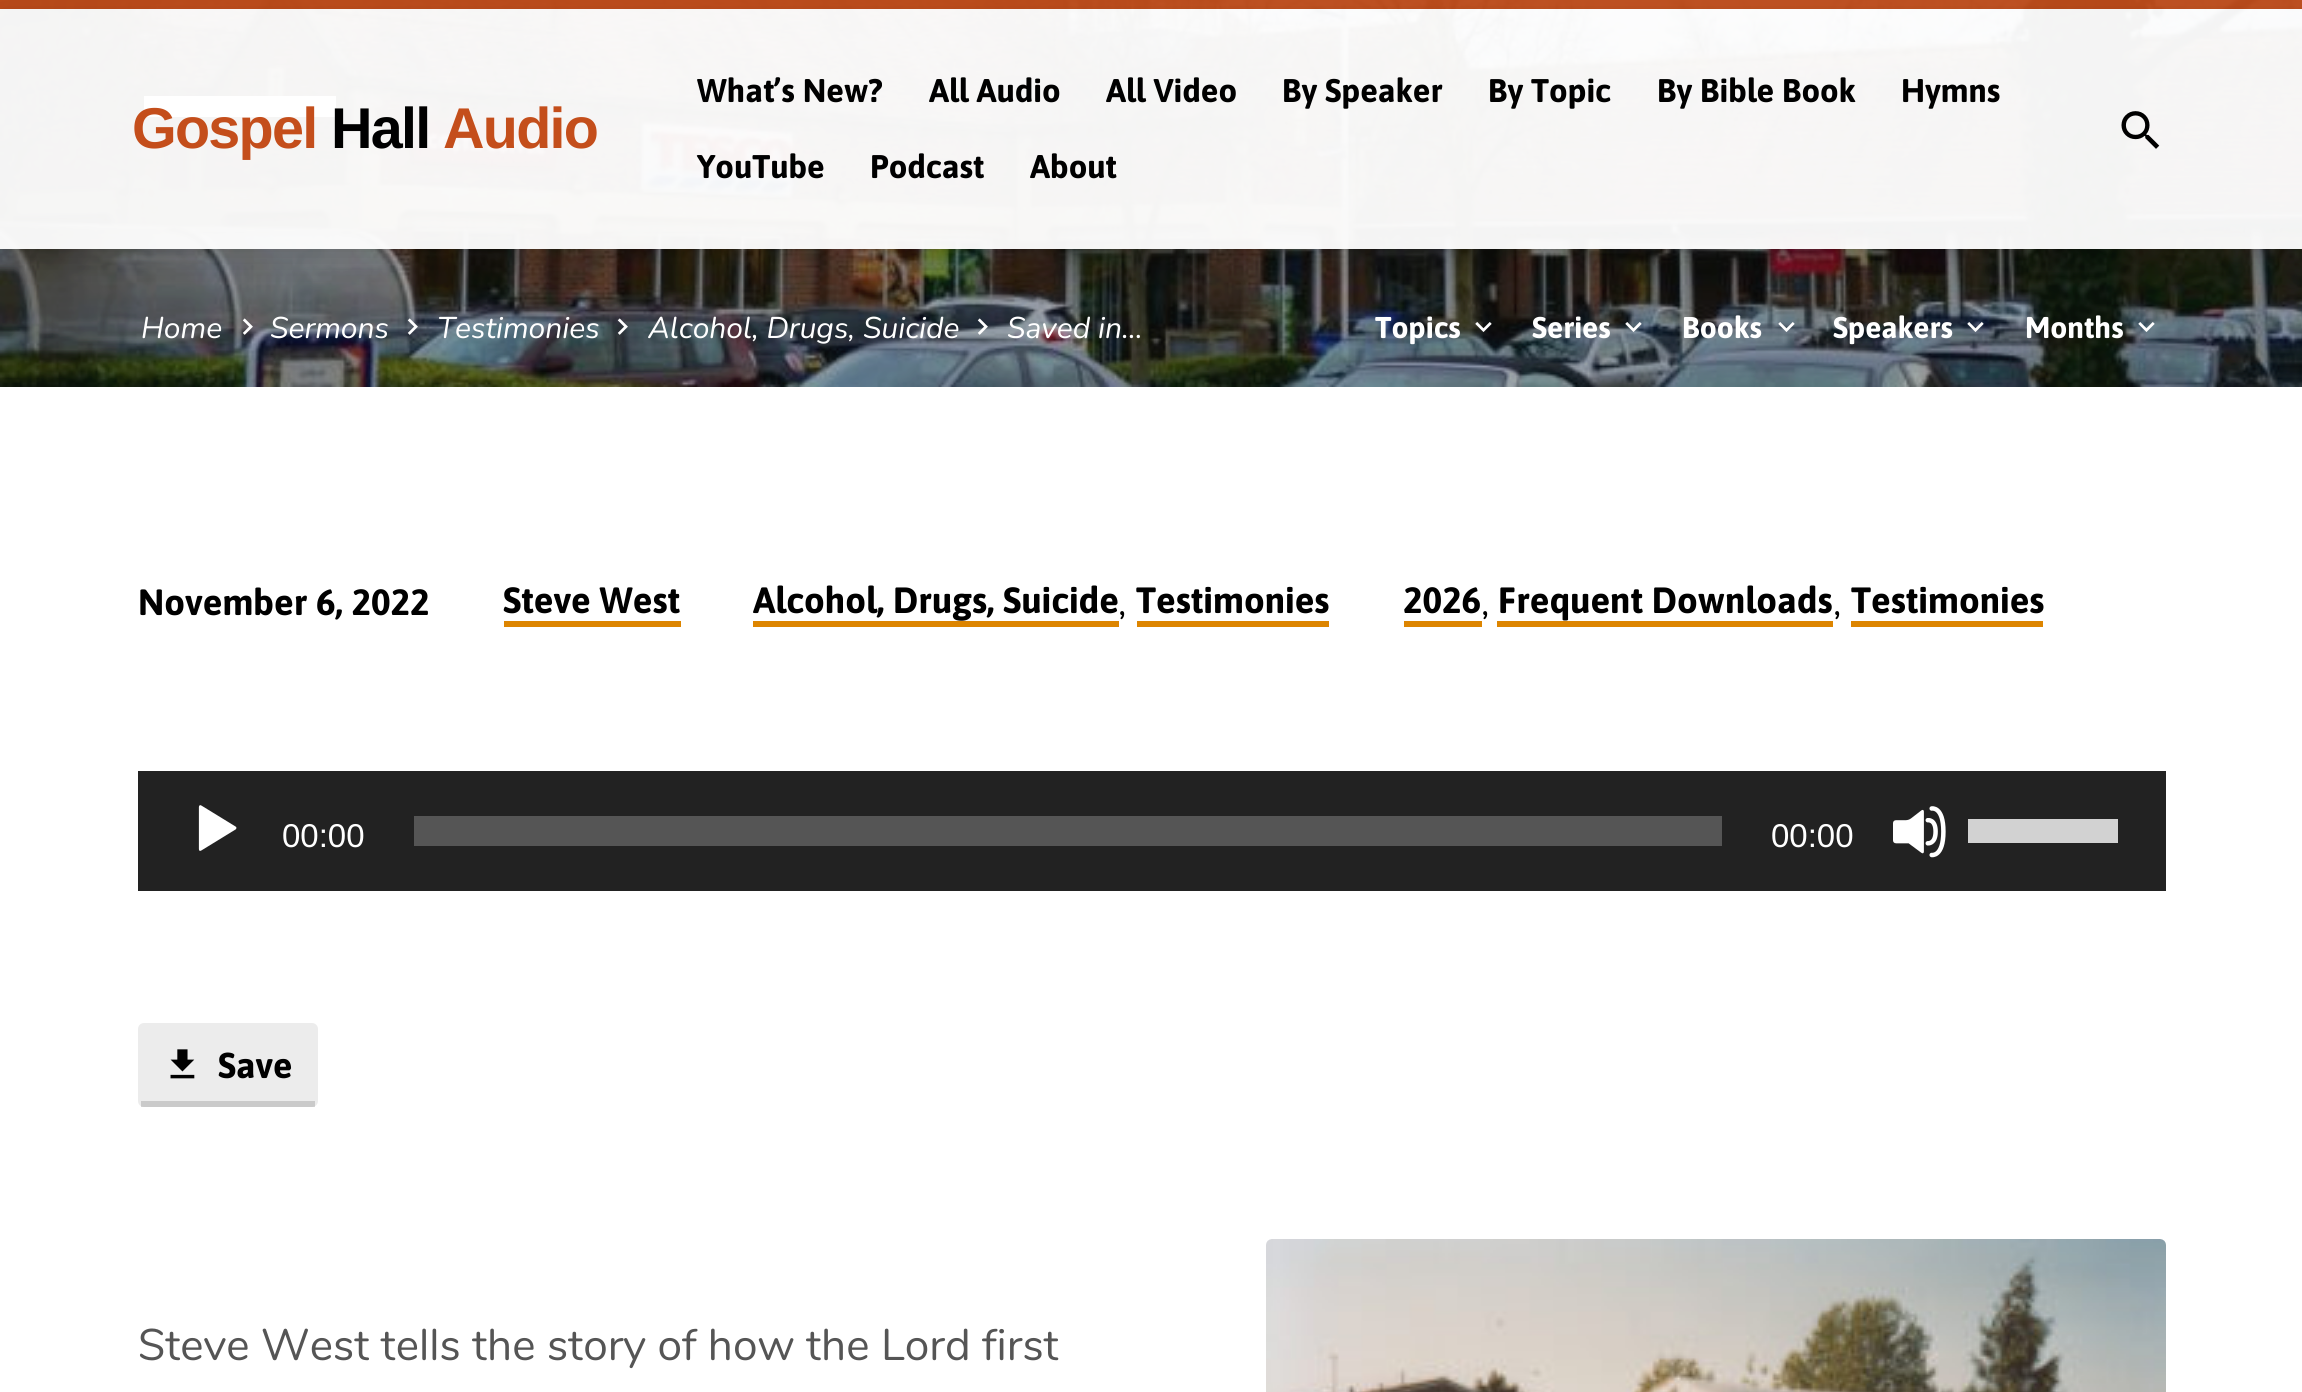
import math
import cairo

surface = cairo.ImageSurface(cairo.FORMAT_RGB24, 2302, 1392)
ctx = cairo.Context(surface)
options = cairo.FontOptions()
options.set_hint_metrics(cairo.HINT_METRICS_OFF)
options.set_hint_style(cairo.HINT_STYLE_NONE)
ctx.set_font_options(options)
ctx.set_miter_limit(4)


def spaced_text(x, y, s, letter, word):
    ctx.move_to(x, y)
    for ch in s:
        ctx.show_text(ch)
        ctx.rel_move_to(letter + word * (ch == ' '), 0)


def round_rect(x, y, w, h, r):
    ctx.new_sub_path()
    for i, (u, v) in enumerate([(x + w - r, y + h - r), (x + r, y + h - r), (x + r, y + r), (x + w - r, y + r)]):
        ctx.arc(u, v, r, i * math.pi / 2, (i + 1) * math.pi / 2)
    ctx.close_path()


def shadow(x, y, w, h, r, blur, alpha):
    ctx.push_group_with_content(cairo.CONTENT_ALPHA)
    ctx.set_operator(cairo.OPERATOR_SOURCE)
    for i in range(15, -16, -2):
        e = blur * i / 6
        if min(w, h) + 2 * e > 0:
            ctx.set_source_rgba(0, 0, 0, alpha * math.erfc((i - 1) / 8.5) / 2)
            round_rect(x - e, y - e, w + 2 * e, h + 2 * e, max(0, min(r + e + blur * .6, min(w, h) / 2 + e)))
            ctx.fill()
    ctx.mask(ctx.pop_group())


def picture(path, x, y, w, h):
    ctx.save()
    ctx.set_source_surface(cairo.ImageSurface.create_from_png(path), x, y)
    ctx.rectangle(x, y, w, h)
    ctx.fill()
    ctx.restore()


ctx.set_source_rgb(1, 1, 1)
ctx.paint()
picture("img2.png", 0, 0, 2302, 387)
gradient = cairo.LinearGradient(1152, -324, 1152, 387)
gradient.add_color_stop_rgba(0, 0, 0, 0, 0)
gradient.add_color_stop_rgba(0.36, 0, 0, 0, 0)
gradient.add_color_stop_rgba(0.76, 0, 0, 0, 0.28)
gradient.add_color_stop_rgba(1, 0, 0, 0, 0.28)
ctx.set_source(gradient)
ctx.rectangle(0, 0, 2302, 387)
ctx.fill()
ctx.set_source_rgba(0.769, 0.306, 0.106, 0.95)
ctx.rectangle(0, 0, 2302, 9)
ctx.fill()
ctx.set_source_rgb(1, 1, 1)
ctx.rectangle(144, 96, 192, 21)
ctx.fill()
ctx.set_source_rgba(1, 1, 1, 0.95)
ctx.rectangle(0, 9, 2302, 240)
ctx.fill()
ctx.save()
ctx.set_fill_rule(cairo.FILL_RULE_EVEN_ODD)
ctx.new_path()
ctx.move_to(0, 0)
ctx.line_to(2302, 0)
ctx.line_to(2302, 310)
ctx.line_to(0, 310)
ctx.close_path()
ctx.move_to(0, 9)
ctx.line_to(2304, 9)
ctx.line_to(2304, 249)
ctx.line_to(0, 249)
ctx.close_path()
ctx.clip()
ctx.set_source_rgb(0, 0, 0)
shadow(0, 15, 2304, 240, 0, 18, 0.14)
ctx.restore()
ctx.select_font_face("Arimo", cairo.FONT_SLANT_NORMAL, cairo.FONT_WEIGHT_BOLD)
ctx.set_font_size(57.5)
ctx.set_source_rgb(0.769, 0.306, 0.106)
spaced_text(132, 148, "Gospel", -1.75, 0)
ctx.set_source_rgb(0, 0, 0)
spaced_text(331, 148, "Hall", -1.75, 0)
ctx.set_source_rgb(0.769, 0.306, 0.106)
spaced_text(443, 148, "Audio", -1.75, 0)
ctx.select_font_face("Asap", cairo.FONT_SLANT_NORMAL, cairo.FONT_WEIGHT_BOLD)
ctx.set_font_size(32.75)
ctx.set_source_rgb(0, 0, 0)
ctx.move_to(697, 102)
ctx.show_text("What’s New?")
ctx.move_to(929, 102)
ctx.show_text("All Audio")
ctx.move_to(1106, 102)
ctx.show_text("All Video")
ctx.move_to(1282, 102)
ctx.show_text("By Speaker")
ctx.move_to(1488, 102)
ctx.show_text("By Topic")
ctx.move_to(1657, 102)
ctx.show_text("By Bible Book")
ctx.move_to(1901, 102)
ctx.show_text("Hymns")
ctx.move_to(697, 178)
ctx.show_text("YouTube")
ctx.move_to(870, 178)
ctx.show_text("Podcast")
ctx.move_to(1030, 178)
ctx.show_text("About")
picture("img1.png", 2121, 111, 39, 38)
ctx.select_font_face("Nunito", cairo.FONT_SLANT_ITALIC)
ctx.set_font_size(30)
ctx.set_source_rgb(1, 1, 1)
ctx.move_to(141, 338)
ctx.show_text("Home")
picture("img3.png", 242, 318, 11, 17)
ctx.move_to(270, 338)
ctx.show_text("Sermons")
picture("img4.png", 407, 318, 11, 17)
ctx.move_to(437, 338)
ctx.show_text("Testimonies")
picture("img5.png", 617, 318, 11, 17)
ctx.move_to(648, 338)
ctx.show_text("Alcohol, Drugs, Suicide")
picture("img6.png", 977, 318, 11, 17)
ctx.move_to(1007, 338)
ctx.show_text("Saved in…")
ctx.select_font_face("Asap", cairo.FONT_SLANT_NORMAL, cairo.FONT_WEIGHT_BOLD)
ctx.move_to(1375, 338)
ctx.show_text("Topics")
picture("img7.png", 1475, 322, 17, 10)
ctx.move_to(1532, 338)
ctx.show_text("Series")
picture("img8.png", 1625, 322, 17, 10)
ctx.move_to(1682, 338)
ctx.show_text("Books")
picture("img9.png", 1778, 322, 17, 10)
ctx.move_to(1833, 338)
ctx.show_text("Speakers")
picture("img10.png", 1967, 322, 17, 10)
ctx.move_to(2025, 338)
ctx.show_text("Months")
picture("img11.png", 2138, 322, 17, 10)
ctx.set_font_size(36.5)
ctx.set_source_rgb(0, 0, 0)
ctx.move_to(138, 615)
ctx.show_text("November 6, 2022")
ctx.move_to(503, 613)
ctx.show_text("Steve West")
ctx.set_source_rgb(0.867, 0.522, 0)
ctx.rectangle(504, 621, 177, 6)
ctx.fill()
ctx.set_source_rgb(0, 0, 0)
ctx.move_to(753, 613)
ctx.show_text("Alcohol, Drugs, Suicide")
ctx.set_source_rgb(0.867, 0.522, 0)
ctx.rectangle(753, 621, 366, 6)
ctx.fill()
ctx.set_source_rgb(0, 0, 0)
ctx.move_to(1136, 613)
ctx.show_text("Testimonies")
ctx.set_source_rgb(0.867, 0.522, 0)
ctx.rectangle(1137, 621, 192, 6)
ctx.fill()
ctx.select_font_face("Nunito")
ctx.set_source_rgb(0, 0, 0)
ctx.move_to(1118, 615)
ctx.show_text(",")
ctx.select_font_face("Asap", cairo.FONT_SLANT_NORMAL, cairo.FONT_WEIGHT_BOLD)
ctx.move_to(1403, 613)
ctx.show_text("2026")
ctx.set_source_rgb(0.867, 0.522, 0)
ctx.rectangle(1404, 621, 78, 6)
ctx.fill()
ctx.set_source_rgb(0, 0, 0)
ctx.move_to(1498, 613)
ctx.show_text("Frequent Downloads")
ctx.set_source_rgb(0.867, 0.522, 0)
ctx.rectangle(1497, 621, 336, 6)
ctx.fill()
ctx.set_source_rgb(0, 0, 0)
ctx.move_to(1851, 613)
ctx.show_text("Testimonies")
ctx.set_source_rgb(0.867, 0.522, 0)
ctx.rectangle(1851, 621, 192, 6)
ctx.fill()
ctx.select_font_face("Nunito")
ctx.set_source_rgb(0, 0, 0)
ctx.move_to(1481, 615)
ctx.show_text(",")
ctx.move_to(1833, 615)
ctx.show_text(",")
ctx.set_source_rgb(0.133, 0.133, 0.133)
ctx.rectangle(138, 771, 2028, 120)
ctx.fill()
picture("img12.png", 198, 805, 39, 46)
ctx.select_font_face("Liberation Sans")
ctx.set_font_size(33)
ctx.set_source_rgb(1, 1, 1)
ctx.move_to(282, 847)
ctx.show_text("00:00")
ctx.set_source_rgb(0.333, 0.333, 0.333)
ctx.rectangle(414, 816, 1308, 30)
ctx.fill()
ctx.set_source_rgb(1, 1, 1)
ctx.move_to(1771, 847)
ctx.show_text("00:00")
picture("img13.png", 1893, 806, 53, 52)
ctx.set_source_rgb(0.824, 0.824, 0.824)
ctx.rectangle(1968, 819, 150, 24)
ctx.fill()
ctx.set_source_rgb(0.922, 0.922, 0.922)
round_rect(138, 1023, 180, 84, 6)
ctx.fill()
ctx.set_source_rgba(0.196, 0.196, 0.196, 0.18)
ctx.rectangle(141, 1101, 174, 6)
ctx.fill()
picture("img14.png", 170, 1049, 25, 30)
ctx.select_font_face("Asap", cairo.FONT_SLANT_NORMAL, cairo.FONT_WEIGHT_BOLD)
ctx.set_font_size(36)
ctx.set_source_rgb(0, 0, 0)
ctx.move_to(218, 1078)
ctx.show_text("Save")
ctx.select_font_face("Nunito")
ctx.set_font_size(44.2)
ctx.set_source_rgb(0.333, 0.333, 0.333)
ctx.move_to(138, 1360)
ctx.show_text("Steve West tells the story of how the Lord first")
picture("img15.png", 1266, 1239, 900, 153)
surface.write_to_png("page.png")
